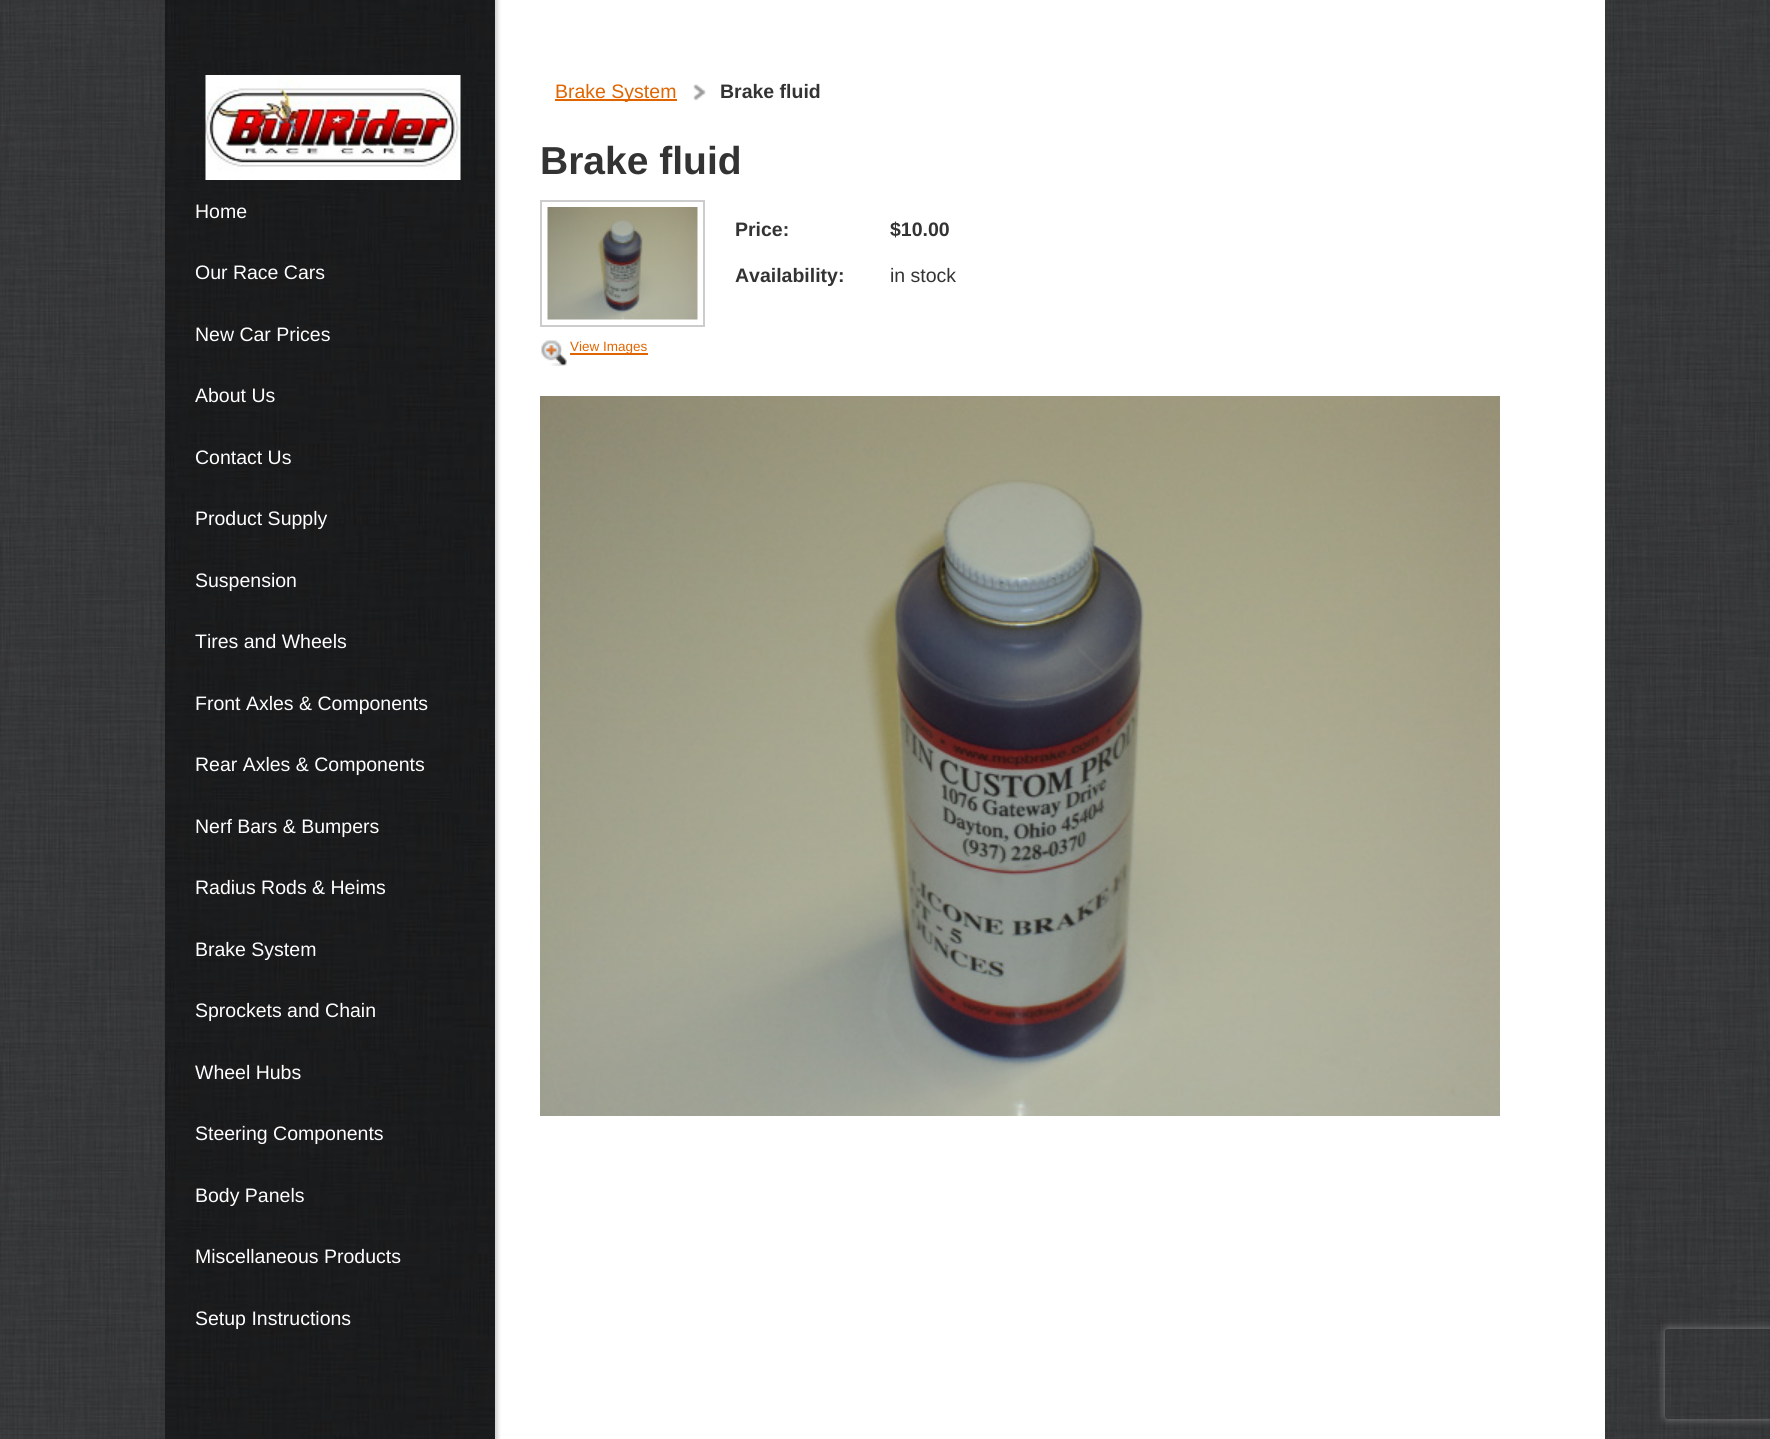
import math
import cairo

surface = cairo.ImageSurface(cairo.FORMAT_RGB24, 1770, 1439)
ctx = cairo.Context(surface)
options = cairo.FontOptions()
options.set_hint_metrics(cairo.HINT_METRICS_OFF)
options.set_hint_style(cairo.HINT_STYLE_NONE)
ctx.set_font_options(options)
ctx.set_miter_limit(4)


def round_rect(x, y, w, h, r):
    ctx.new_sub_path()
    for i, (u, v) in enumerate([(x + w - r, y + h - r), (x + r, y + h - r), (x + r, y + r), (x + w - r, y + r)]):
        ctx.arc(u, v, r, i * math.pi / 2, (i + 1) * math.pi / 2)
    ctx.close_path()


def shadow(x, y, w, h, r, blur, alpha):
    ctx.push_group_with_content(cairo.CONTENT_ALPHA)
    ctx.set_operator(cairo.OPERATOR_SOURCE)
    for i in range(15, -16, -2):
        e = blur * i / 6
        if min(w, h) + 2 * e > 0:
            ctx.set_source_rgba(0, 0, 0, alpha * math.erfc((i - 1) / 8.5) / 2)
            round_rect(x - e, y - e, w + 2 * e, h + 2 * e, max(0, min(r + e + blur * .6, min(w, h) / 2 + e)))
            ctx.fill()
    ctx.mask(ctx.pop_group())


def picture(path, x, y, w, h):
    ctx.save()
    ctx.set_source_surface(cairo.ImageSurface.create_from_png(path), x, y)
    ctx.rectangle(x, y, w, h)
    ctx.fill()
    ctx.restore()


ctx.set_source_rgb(1, 1, 1)
ctx.paint()
picture("img1.png", 0, 0, 1770, 1439)
picture("img2.png", 165, 0, 330, 1439)
picture("img3.png", 495, 0, 1110, 1439)
picture("img4.png", 205, 75, 256, 105)
ctx.select_font_face("Liberation Sans")
ctx.set_font_size(19.5)
ctx.set_source_rgb(1, 1, 1)
ctx.move_to(195, 218)
ctx.show_text("Home")
ctx.move_to(195, 279)
ctx.show_text("Our Race Cars")
ctx.move_to(195, 341)
ctx.show_text("New Car Prices")
ctx.move_to(195, 402)
ctx.show_text("About Us")
ctx.move_to(195, 464)
ctx.show_text("Contact Us")
ctx.move_to(195, 525)
ctx.show_text("Product Supply")
ctx.move_to(195, 587)
ctx.show_text("Suspension")
ctx.move_to(195, 648)
ctx.show_text("Tires and Wheels")
ctx.move_to(195, 710)
ctx.show_text("Front Axles & Components")
ctx.move_to(195, 771)
ctx.show_text("Rear Axles & Components")
ctx.move_to(195, 833)
ctx.show_text("Nerf Bars & Bumpers")
ctx.move_to(195, 894)
ctx.show_text("Radius Rods & Heims")
ctx.move_to(195, 956)
ctx.show_text("Brake System")
ctx.move_to(195, 1017)
ctx.show_text("Sprockets and Chain")
ctx.move_to(195, 1079)
ctx.show_text("Wheel Hubs")
ctx.move_to(195, 1140)
ctx.show_text("Steering Components")
ctx.move_to(195, 1202)
ctx.show_text("Body Panels")
ctx.move_to(195, 1263)
ctx.show_text("Miscellaneous Products")
ctx.move_to(195, 1325)
ctx.show_text("Setup Instructions")
ctx.set_source_rgb(0.878, 0.396, 0)
ctx.rectangle(555, 99, 122, 2)
ctx.fill()
ctx.move_to(555, 98)
ctx.show_text("Brake System")
picture("img5.png", 693, 84, 13, 17)
ctx.select_font_face("Liberation Sans", cairo.FONT_SLANT_NORMAL, cairo.FONT_WEIGHT_BOLD)
ctx.set_source_rgb(0.2, 0.2, 0.2)
ctx.move_to(720, 98)
ctx.show_text("Brake fluid")
ctx.set_font_size(39)
ctx.move_to(540, 174)
ctx.show_text("Brake fluid")
ctx.set_font_size(19.5)
ctx.move_to(735, 236)
ctx.show_text("Price:")
ctx.move_to(890, 236)
ctx.show_text("$10.00")
ctx.move_to(735, 282)
ctx.show_text("Availability:")
ctx.select_font_face("Liberation Sans")
ctx.move_to(890, 282)
ctx.show_text("in stock")
ctx.rectangle(541, 201, 163, 125)
ctx.set_source_rgb(0.8, 0.8, 0.8)
ctx.stroke()
picture("img6.png", 547, 207, 151, 113)
picture("img7.png", 541, 340, 26, 26)
ctx.set_source_rgb(0.878, 0.396, 0)
ctx.rectangle(570, 353, 78, 2)
ctx.fill()
ctx.set_font_size(13.5)
ctx.move_to(570, 351)
ctx.show_text("View Images")
picture("img8.png", 540, 396, 960, 720)
ctx.save()
ctx.set_fill_rule(cairo.FILL_RULE_EVEN_ODD)
ctx.new_path()
ctx.move_to(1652, 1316)
ctx.line_to(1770, 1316)
ctx.line_to(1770, 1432)
ctx.line_to(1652, 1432)
ctx.close_path()
ctx.move_to(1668, 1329)
ctx.line_to(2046, 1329)
ctx.curve_to(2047.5, 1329, 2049, 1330.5, 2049, 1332)
ctx.line_to(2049, 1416)
ctx.curve_to(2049, 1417.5, 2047.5, 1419, 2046, 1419)
ctx.line_to(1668, 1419)
ctx.curve_to(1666.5, 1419, 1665, 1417.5, 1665, 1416)
ctx.line_to(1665, 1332)
ctx.curve_to(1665, 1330.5, 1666.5, 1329, 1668, 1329)
ctx.close_path()
ctx.clip()
ctx.set_source_rgb(0.502, 0.502, 0.502)
shadow(1665, 1329, 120, 90, 3, 4, 1)
ctx.restore()
surface.write_to_png("page.png")
